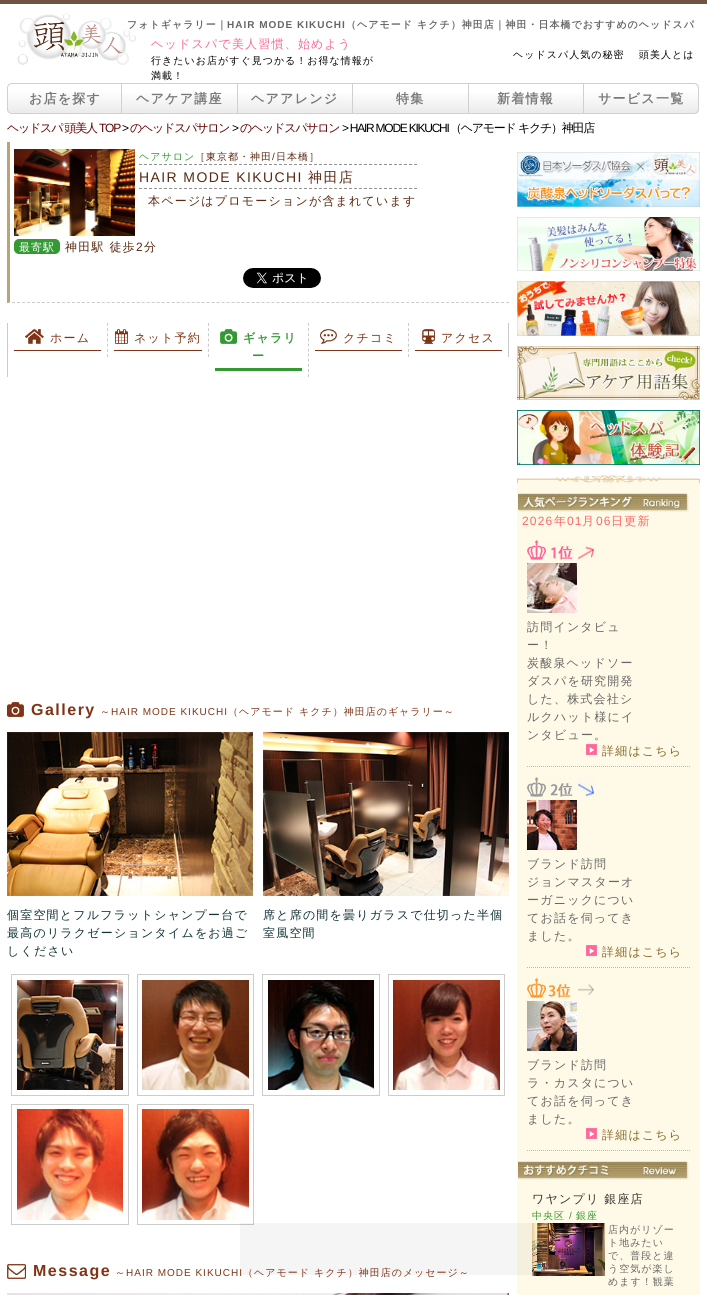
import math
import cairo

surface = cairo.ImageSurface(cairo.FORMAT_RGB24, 707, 1295)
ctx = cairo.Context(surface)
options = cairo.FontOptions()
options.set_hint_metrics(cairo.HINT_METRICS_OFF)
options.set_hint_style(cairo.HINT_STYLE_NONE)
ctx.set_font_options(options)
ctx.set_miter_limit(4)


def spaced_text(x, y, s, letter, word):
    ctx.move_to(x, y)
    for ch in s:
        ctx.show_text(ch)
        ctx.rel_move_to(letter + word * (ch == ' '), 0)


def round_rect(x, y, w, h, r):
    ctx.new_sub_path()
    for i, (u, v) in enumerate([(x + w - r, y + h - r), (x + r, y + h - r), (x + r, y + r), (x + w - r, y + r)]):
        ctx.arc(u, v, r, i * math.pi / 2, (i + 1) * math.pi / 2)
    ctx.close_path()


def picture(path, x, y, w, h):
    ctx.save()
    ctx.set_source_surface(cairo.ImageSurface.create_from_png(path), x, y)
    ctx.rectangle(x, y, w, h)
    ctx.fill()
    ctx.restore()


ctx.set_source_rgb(1, 1, 1)
ctx.paint()
ctx.set_source_rgb(0.443, 0.325, 0.267)
ctx.rectangle(0, 0, 707, 4)
ctx.fill()
picture("img1.png", 17, 13, 119, 52)
ctx.select_font_face("WenQuanYi Zen Hei", cairo.FONT_SLANT_NORMAL, cairo.FONT_WEIGHT_BOLD)
ctx.set_font_size(10)
ctx.set_source_rgb(0.4, 0.4, 0.4)
spaced_text(127, 28, "フォトギャラリー｜", 1, 0)
ctx.select_font_face("Liberation Sans", cairo.FONT_SLANT_NORMAL, cairo.FONT_WEIGHT_BOLD)
spaced_text(227, 28, "HAIR MODE KIKUCHI", 1, 0)
ctx.select_font_face("WenQuanYi Zen Hei", cairo.FONT_SLANT_NORMAL, cairo.FONT_WEIGHT_BOLD)
spaced_text(346, 28, "（ヘアモード キクチ）神田店｜神田・日本橋でおすすめのヘッドスパ", 1, 0)
ctx.select_font_face("WenQuanYi Zen Hei Medium")
ctx.set_font_size(12)
ctx.set_source_rgb(1, 0.4, 0.6)
spaced_text(151, 48, "ヘッドスパで美人習慣、始めよう", 1.2, 0)
ctx.set_font_size(10)
ctx.set_source_rgb(0, 0, 0)
spaced_text(151, 64, "行きたいお店がすぐ見つかる！お得な情報が", 1, 0)
spaced_text(151, 79, "満載！", 1, 0)
spaced_text(513, 58, "ヘッドスパ人気の秘密", 1, 0)
spaced_text(639, 58, "頭美人とは", 1, 0)
ctx.save()
ctx.new_path()
ctx.move_to(12, 83)
ctx.line_to(122, 83)
ctx.line_to(122, 114)
ctx.line_to(12, 114)
ctx.curve_to(9, 114, 7, 112, 7, 109)
ctx.line_to(7, 88)
ctx.curve_to(7, 85, 9, 83, 12, 83)
ctx.close_path()
ctx.clip()
gradient = cairo.LinearGradient(65, 84, 65, 113)
gradient.add_color_stop_rgba(0.23, 1, 1, 1, 1)
gradient.add_color_stop_rgba(1, 0.922, 0.922, 0.922, 1)
ctx.set_source(gradient)
ctx.rectangle(7, 84, 114, 29)
ctx.fill()
ctx.restore()
ctx.new_path()
ctx.move_to(12, 83.5)
ctx.line_to(121.5, 83.5)
ctx.line_to(121.5, 113.5)
ctx.line_to(12, 113.5)
ctx.curve_to(9.5, 113.5, 7.5, 111.5, 7.5, 109)
ctx.line_to(7.5, 88)
ctx.curve_to(7.5, 85.5, 9.5, 83.5, 12, 83.5)
ctx.close_path()
ctx.set_source_rgb(0.816, 0.816, 0.816)
ctx.set_line_width(1)
ctx.stroke()
ctx.select_font_face("WenQuanYi Zen Hei", cairo.FONT_SLANT_NORMAL, cairo.FONT_WEIGHT_BOLD)
ctx.set_font_size(13)
ctx.set_source_rgb(0.475, 0.475, 0.475)
spaced_text(29, 103, "お店を探す", 1.25, 0)
gradient = cairo.LinearGradient(180, 84, 180, 113)
gradient.add_color_stop_rgba(0.23, 1, 1, 1, 1)
gradient.add_color_stop_rgba(1, 0.922, 0.922, 0.922, 1)
ctx.set_source(gradient)
ctx.rectangle(122, 93, 115, 20)
ctx.fill()
ctx.set_source_rgb(0.816, 0.816, 0.816)
ctx.rectangle(122, 83, 462, 1)
ctx.fill()
ctx.rectangle(237, 83, 1, 31)
ctx.fill()
ctx.rectangle(122, 113, 116, 1)
ctx.fill()
ctx.set_source_rgb(0.475, 0.475, 0.475)
spaced_text(136, 103, "ヘアケア講座", 1.25, 0)
gradient = cairo.LinearGradient(295, 84, 295, 113)
gradient.add_color_stop_rgba(0.23, 1, 1, 1, 1)
gradient.add_color_stop_rgba(1, 0.922, 0.922, 0.922, 1)
ctx.set_source(gradient)
ctx.rectangle(238, 93, 114, 20)
ctx.fill()
ctx.set_source_rgb(0.816, 0.816, 0.816)
ctx.rectangle(352, 83, 1, 31)
ctx.fill()
ctx.rectangle(238, 113, 115, 1)
ctx.fill()
ctx.set_source_rgb(0.475, 0.475, 0.475)
spaced_text(251, 103, "ヘアアレンジ", 1.25, 0)
gradient = cairo.LinearGradient(411, 84, 411, 113)
gradient.add_color_stop_rgba(0.23, 1, 1, 1, 1)
gradient.add_color_stop_rgba(1, 0.922, 0.922, 0.922, 1)
ctx.set_source(gradient)
ctx.rectangle(353, 93, 115, 20)
ctx.fill()
ctx.set_source_rgb(0.816, 0.816, 0.816)
ctx.rectangle(468, 83, 1, 31)
ctx.fill()
ctx.rectangle(353, 113, 116, 1)
ctx.fill()
ctx.set_source_rgb(0.475, 0.475, 0.475)
spaced_text(396, 103, "特集", 1.25, 0)
gradient = cairo.LinearGradient(526, 84, 526, 113)
gradient.add_color_stop_rgba(0.23, 1, 1, 1, 1)
gradient.add_color_stop_rgba(1, 0.922, 0.922, 0.922, 1)
ctx.set_source(gradient)
ctx.rectangle(469, 93, 114, 20)
ctx.fill()
ctx.set_source_rgb(0.816, 0.816, 0.816)
ctx.rectangle(583, 83, 1, 31)
ctx.fill()
ctx.rectangle(469, 113, 115, 1)
ctx.fill()
ctx.set_source_rgb(0.475, 0.475, 0.475)
spaced_text(497, 103, "新着情報", 1.25, 0)
ctx.save()
ctx.new_path()
ctx.move_to(584, 83)
ctx.line_to(694, 83)
ctx.curve_to(697, 83, 699, 85, 699, 88)
ctx.line_to(699, 109)
ctx.curve_to(699, 112, 697, 114, 694, 114)
ctx.line_to(584, 114)
ctx.close_path()
ctx.clip()
gradient = cairo.LinearGradient(641, 84, 641, 113)
gradient.add_color_stop_rgba(0.23, 1, 1, 1, 1)
gradient.add_color_stop_rgba(1, 0.922, 0.922, 0.922, 1)
ctx.set_source(gradient)
ctx.rectangle(584, 84, 115, 29)
ctx.fill()
ctx.restore()
ctx.set_source_rgb(0.816, 0.816, 0.816)
ctx.set_fill_rule(cairo.FILL_RULE_EVEN_ODD)
ctx.new_path()
ctx.move_to(584, 83)
ctx.line_to(694, 83)
ctx.curve_to(697, 83, 699, 85, 699, 88)
ctx.line_to(699, 109)
ctx.curve_to(699, 112, 697, 114, 694, 114)
ctx.line_to(584, 114)
ctx.close_path()
ctx.move_to(584, 84)
ctx.line_to(694, 84)
ctx.curve_to(696, 84, 698, 86, 698, 88)
ctx.line_to(698, 109)
ctx.curve_to(698, 111, 696, 113, 694, 113)
ctx.line_to(584, 113)
ctx.close_path()
ctx.fill()
ctx.set_source_rgb(0.475, 0.475, 0.475)
spaced_text(598, 103, "サービス一覧", 1.25, 0)
ctx.select_font_face("WenQuanYi Zen Hei Medium")
ctx.set_font_size(12)
ctx.set_source_rgb(0.4, 0, 0)
spaced_text(7, 132, "ヘッドスパ 頭美人", -1.25, 0)
ctx.select_font_face("Liberation Sans")
spaced_text(99, 132, "TOP", -1.25, 0)
ctx.set_source_rgb(0, 0, 0)
spaced_text(122, 132, ">", -1.25, 0)
ctx.select_font_face("WenQuanYi Zen Hei Medium")
ctx.set_source_rgb(0.4, 0, 0)
spaced_text(130, 132, "のヘッドスパサロン", -1.25, 0)
ctx.select_font_face("Liberation Sans")
ctx.set_source_rgb(0, 0, 0)
spaced_text(232, 132, ">", -1.25, 0)
ctx.select_font_face("WenQuanYi Zen Hei Medium")
ctx.set_source_rgb(0.4, 0, 0)
spaced_text(240, 132, "のヘッドスパサロン", -1.25, 0)
ctx.select_font_face("Liberation Sans")
ctx.set_source_rgb(0, 0, 0)
spaced_text(342, 132, "> HAIR MODE KIKUCHI", -1.25, 0)
ctx.select_font_face("WenQuanYi Zen Hei Medium")
spaced_text(450, 132, "（ヘアモード キクチ）神田店", -1.25, 0)
ctx.new_path()
ctx.move_to(7, 302.5)
ctx.line_to(509, 302.5)
ctx.set_source_rgb(0.796, 0.796, 0.796)
ctx.set_dash([3, 1.99])
ctx.stroke()
ctx.set_source_rgb(0.722, 0.643, 0.471)
ctx.set_fill_rule(cairo.FILL_RULE_WINDING)
ctx.new_path()
ctx.move_to(7, 303)
ctx.line_to(7, 142)
ctx.line_to(10, 142)
ctx.line_to(10, 302)
ctx.close_path()
ctx.fill()
picture("img2.png", 14, 149, 121, 87)
ctx.set_font_size(10)
ctx.set_source_rgb(0.2, 0.6, 0.2)
spaced_text(139, 160, "ヘアサロン", 1, 0)
ctx.set_source_rgb(0.353, 0.161, 0.063)
spaced_text(195, 160, "［東京都・神田 日本橋］", 1, 0)
ctx.select_font_face("Liberation Sans")
spaced_text(272, 160, "/", 1, 0)
ctx.new_path()
ctx.move_to(139, 164.5)
ctx.line_to(417, 164.5)
ctx.set_source_rgb(0.569, 0.569, 0.569)
ctx.set_dash([3, 2])
ctx.stroke()
ctx.new_path()
ctx.move_to(139, 188.5)
ctx.line_to(417, 188.5)
ctx.stroke()
ctx.set_font_size(14)
ctx.set_source_rgb(0.353, 0.161, 0.063)
spaced_text(139, 182, "HAIR MODE KIKUCHI", 1.4, 0)
ctx.select_font_face("WenQuanYi Zen Hei Medium")
spaced_text(308, 182, "神田店", 1.4, 0)
ctx.set_font_size(12)
spaced_text(148, 205, "本ページはプロモーションが含まれています", 1.2, 0)
ctx.set_source_rgb(0.2, 0.6, 0.2)
round_rect(14, 239, 46, 15, 5)
ctx.fill()
ctx.set_font_size(11)
ctx.set_source_rgb(1, 1, 1)
spaced_text(19, 251, "最寄駅", 1, 0)
ctx.set_font_size(12)
ctx.set_source_rgb(0.353, 0.161, 0.063)
spaced_text(65, 251, "神田駅 徒歩", 1.2, 0)
ctx.select_font_face("Liberation Sans")
spaced_text(136, 251, "2", 1.2, 0)
ctx.select_font_face("WenQuanYi Zen Hei Medium")
spaced_text(144, 251, "分", 1.2, 0)
picture("img3.png", 243, 268, 78, 20)
ctx.set_source_rgb(0.796, 0.796, 0.796)
ctx.rectangle(7, 323, 1, 54)
ctx.fill()
ctx.new_path()
ctx.move_to(107.5, 323)
ctx.line_to(107.5, 357)
ctx.set_dash([3, 2.17])
ctx.stroke()
ctx.set_source_rgb(0.498, 0.204, 0.086)
ctx.rectangle(14, 350, 87, 1)
ctx.fill()
ctx.rectangle(25, 329, 19, 15)
ctx.fill()
picture("img4.png", 25, 329, 19, 15)
spaced_text(50, 342, "ホーム", 1.2, 0)
ctx.new_path()
ctx.move_to(208.5, 323)
ctx.line_to(208.5, 357)
ctx.set_source_rgb(0.796, 0.796, 0.796)
ctx.stroke()
ctx.set_source_rgb(0.498, 0.204, 0.086)
ctx.rectangle(114, 350, 88, 1)
ctx.fill()
ctx.rectangle(115, 329, 13, 15)
ctx.fill()
picture("img5.png", 115, 329, 13, 15)
spaced_text(134, 342, "ネット予約", 1.2, 0)
ctx.new_path()
ctx.move_to(308.5, 323)
ctx.line_to(308.5, 377)
ctx.set_source_rgb(0.796, 0.796, 0.796)
ctx.set_dash([3, 2.1])
ctx.stroke()
ctx.set_source_rgb(0.2, 0.6, 0.2)
ctx.rectangle(215, 368, 87, 3)
ctx.fill()
ctx.rectangle(220, 329, 17, 15)
ctx.fill()
picture("img6.png", 220, 329, 17, 15)
ctx.select_font_face("WenQuanYi Zen Hei", cairo.FONT_SLANT_NORMAL, cairo.FONT_WEIGHT_BOLD)
spaced_text(243, 342, "ギャラリ", 1.2, 0)
spaced_text(252, 360, "ー", 1.2, 0)
ctx.new_path()
ctx.move_to(408.5, 323)
ctx.line_to(408.5, 357)
ctx.set_source_rgb(0.796, 0.796, 0.796)
ctx.set_dash([3, 2.17])
ctx.stroke()
ctx.set_source_rgb(0.498, 0.204, 0.086)
ctx.rectangle(315, 350, 87, 1)
ctx.fill()
ctx.rectangle(320, 329, 17, 15)
ctx.fill()
picture("img7.png", 320, 329, 17, 15)
ctx.select_font_face("WenQuanYi Zen Hei Medium")
spaced_text(343, 342, "クチコミ", 1.2, 0)
ctx.set_source_rgb(0.796, 0.796, 0.796)
ctx.rectangle(508, 323, 1, 34)
ctx.fill()
ctx.set_source_rgb(0.498, 0.204, 0.086)
ctx.rectangle(415, 350, 87, 1)
ctx.fill()
ctx.rectangle(422, 329, 13, 15)
ctx.fill()
picture("img8.png", 422, 329, 13, 15)
spaced_text(441, 342, "アクセス", 1.2, 0)
picture("img9.png", 7, 702, 17, 15)
ctx.select_font_face("Liberation Sans", cairo.FONT_SLANT_NORMAL, cairo.FONT_WEIGHT_BOLD)
ctx.set_font_size(16)
spaced_text(31, 715, "Gallery", 1.5, 0)
ctx.select_font_face("WenQuanYi Zen Hei Medium")
ctx.set_font_size(10)
spaced_text(100, 715, "～", 1, 0)
ctx.select_font_face("Liberation Sans")
spaced_text(111, 715, "HAIR MODE KIKUCHI", 1, 0)
ctx.select_font_face("WenQuanYi Zen Hei Medium")
spaced_text(228, 715, "（ヘアモード キクチ）神田店のギャラリー～", 1, 0)
picture("img10.png", 7, 732, 246, 164)
ctx.set_font_size(12)
ctx.set_source_rgb(0.067, 0.192, 0.2)
spaced_text(7, 919, "個室空間とフルフラットシャンプー台で", 1.2, 0)
spaced_text(7, 937, "最高のリラクゼーションタイムをお過ご", 1.2, 0)
spaced_text(7, 955, "しください", 1.2, 0)
picture("img11.png", 263, 732, 246, 164)
spaced_text(263, 919, "席と席の間を曇りガラスで仕切った半個", 1.2, 0)
spaced_text(263, 937, "室風空間", 1.2, 0)
ctx.rectangle(11.5, 974.5, 117, 121)
ctx.set_source_rgb(0.8, 0.8, 0.8)
ctx.set_dash([])
ctx.stroke()
picture("img12.png", 17, 980, 106, 110)
ctx.rectangle(137.5, 974.5, 116, 121)
ctx.stroke()
picture("img13.png", 142, 980, 107, 110)
ctx.rectangle(262.5, 974.5, 117, 121)
ctx.stroke()
picture("img14.png", 268, 980, 106, 110)
ctx.rectangle(388.5, 974.5, 116, 121)
ctx.stroke()
picture("img15.png", 393, 980, 107, 110)
ctx.rectangle(11.5, 1104.5, 117, 120)
ctx.stroke()
picture("img16.png", 17, 1109, 106, 111)
ctx.rectangle(137.5, 1104.5, 116, 120)
ctx.stroke()
picture("img17.png", 142, 1109, 107, 111)
ctx.set_source_rgb(1, 0.98, 0.906)
ctx.rectangle(517, 483, 183, 812)
ctx.fill()
picture("img38.png", 532, 1223, 73, 53)
ctx.set_source_rgba(0, 0, 0, 0.04)
ctx.rectangle(240, 1223, 323, 52)
ctx.fill()
picture("img18.png", 7, 1264, 19, 15)
ctx.select_font_face("Liberation Sans", cairo.FONT_SLANT_NORMAL, cairo.FONT_WEIGHT_BOLD)
ctx.set_font_size(16)
ctx.set_source_rgb(0.498, 0.204, 0.086)
spaced_text(33, 1276, "Message", 1.5, 0)
ctx.select_font_face("WenQuanYi Zen Hei Medium")
ctx.set_font_size(10)
spaced_text(115, 1276, "～", 1, 0)
ctx.select_font_face("Liberation Sans")
spaced_text(126, 1276, "HAIR MODE KIKUCHI", 1, 0)
ctx.select_font_face("WenQuanYi Zen Hei Medium")
spaced_text(243, 1276, "（ヘアモード キクチ）神田店のメッセージ～", 1, 0)
picture("img19.png", 7, 1293, 502, 2)
picture("img20.png", 517, 152, 183, 55)
picture("img21.png", 517, 217, 183, 54)
picture("img22.png", 517, 281, 183, 55)
picture("img23.png", 517, 346, 183, 54)
picture("img24.png", 517, 410, 183, 55)
picture("img25.png", 517, 475, 183, 8)
picture("img26.png", 518, 493, 171, 19)
ctx.select_font_face("Liberation Sans")
ctx.set_font_size(12)
ctx.set_source_rgb(1, 0.4, 0.4)
spaced_text(522, 525, "2026", 1.2, 0)
ctx.select_font_face("WenQuanYi Zen Hei Medium")
spaced_text(554, 525, "年", 1.2, 0)
ctx.select_font_face("Liberation Sans")
spaced_text(567, 525, "01", 1.2, 0)
ctx.select_font_face("WenQuanYi Zen Hei Medium")
spaced_text(582, 525, "月", 1.2, 0)
ctx.select_font_face("Liberation Sans")
spaced_text(596, 525, "06", 1.2, 0)
ctx.select_font_face("WenQuanYi Zen Hei Medium")
spaced_text(611, 525, "日更新", 1.2, 0)
picture("img27.png", 527, 540, 46, 20)
picture("img28.png", 578, 546, 16, 14)
picture("img29.png", 527, 563, 50, 50)
ctx.set_source_rgb(0.4, 0.4, 0.4)
spaced_text(527, 631, "訪問インタビュ", 1.2, 0)
spaced_text(527, 649, "ー！", 1.2, 0)
spaced_text(527, 667, "炭酸泉ヘッドソー", 1.2, 0)
spaced_text(527, 685, "ダスパを研究開発", 1.2, 0)
spaced_text(527, 703, "した、株式会社シ", 1.2, 0)
spaced_text(527, 721, "ルクハット様にイ", 1.2, 0)
spaced_text(527, 739, "ンタビュー。", 1.2, 0)
ctx.new_path()
ctx.move_to(527, 766.5)
ctx.line_to(690, 766.5)
ctx.set_source_rgb(0.769, 0.725, 0.569)
ctx.set_dash([1, 1])
ctx.stroke()
picture("img30.png", 586, 744, 11, 11)
ctx.set_source_rgb(0.522, 0.408, 0.157)
spaced_text(602, 755, "詳細はこちら", 1.2, 0)
picture("img31.png", 527, 777, 46, 20)
picture("img32.png", 578, 777, 16, 20)
picture("img33.png", 527, 800, 50, 50)
ctx.set_source_rgb(0.4, 0.4, 0.4)
spaced_text(527, 868, "ブランド訪問", 1.2, 0)
spaced_text(527, 886, "ジョンマスターオ", 1.2, 0)
spaced_text(527, 904, "ーガニックについ", 1.2, 0)
spaced_text(527, 922, "てお話を伺ってき", 1.2, 0)
spaced_text(527, 940, "ました。", 1.2, 0)
ctx.new_path()
ctx.move_to(527, 967.5)
ctx.line_to(690, 967.5)
ctx.set_source_rgb(0.769, 0.725, 0.569)
ctx.stroke()
picture("img30.png", 586, 945, 11, 11)
ctx.set_source_rgb(0.522, 0.408, 0.157)
spaced_text(602, 956, "詳細はこちら", 1.2, 0)
picture("img34.png", 527, 978, 44, 20)
picture("img35.png", 578, 984, 16, 12)
picture("img36.png", 527, 1001, 50, 50)
ctx.set_source_rgb(0.4, 0.4, 0.4)
spaced_text(527, 1069, "ブランド訪問", 1.2, 0)
spaced_text(527, 1087, "ラ・カスタについ", 1.2, 0)
spaced_text(527, 1105, "てお話を伺ってき", 1.2, 0)
spaced_text(527, 1123, "ました。", 1.2, 0)
ctx.new_path()
ctx.move_to(527, 1150.5)
ctx.line_to(690, 1150.5)
ctx.set_source_rgb(0.769, 0.725, 0.569)
ctx.stroke()
picture("img30.png", 586, 1128, 11, 11)
ctx.set_source_rgb(0.522, 0.408, 0.157)
spaced_text(602, 1139, "詳細はこちら", 1.2, 0)
picture("img37.png", 518, 1161, 171, 19)
ctx.set_source_rgb(0.2, 0.2, 0.2)
spaced_text(532, 1203, "ワヤンプリ 銀座店", 1.2, 0)
ctx.set_font_size(10)
ctx.set_source_rgb(0.2, 0.6, 0.2)
spaced_text(532, 1219, "中央区", 1, 0)
ctx.select_font_face("Liberation Sans")
spaced_text(569, 1219, "/", 1, 0)
ctx.select_font_face("WenQuanYi Zen Hei Medium")
spaced_text(576, 1219, "銀座", 1, 0)
ctx.set_source_rgb(0.4, 0.4, 0.4)
spaced_text(608, 1233, "店内がリゾー", 1, 0)
spaced_text(608, 1246, "ト地みたい", 1, 0)
spaced_text(608, 1259, "で、普段と違", 1, 0)
spaced_text(608, 1272, "う空気が楽し", 1, 0)
spaced_text(608, 1285, "めます！観葉", 1, 0)
surface.write_to_png("page.png")
